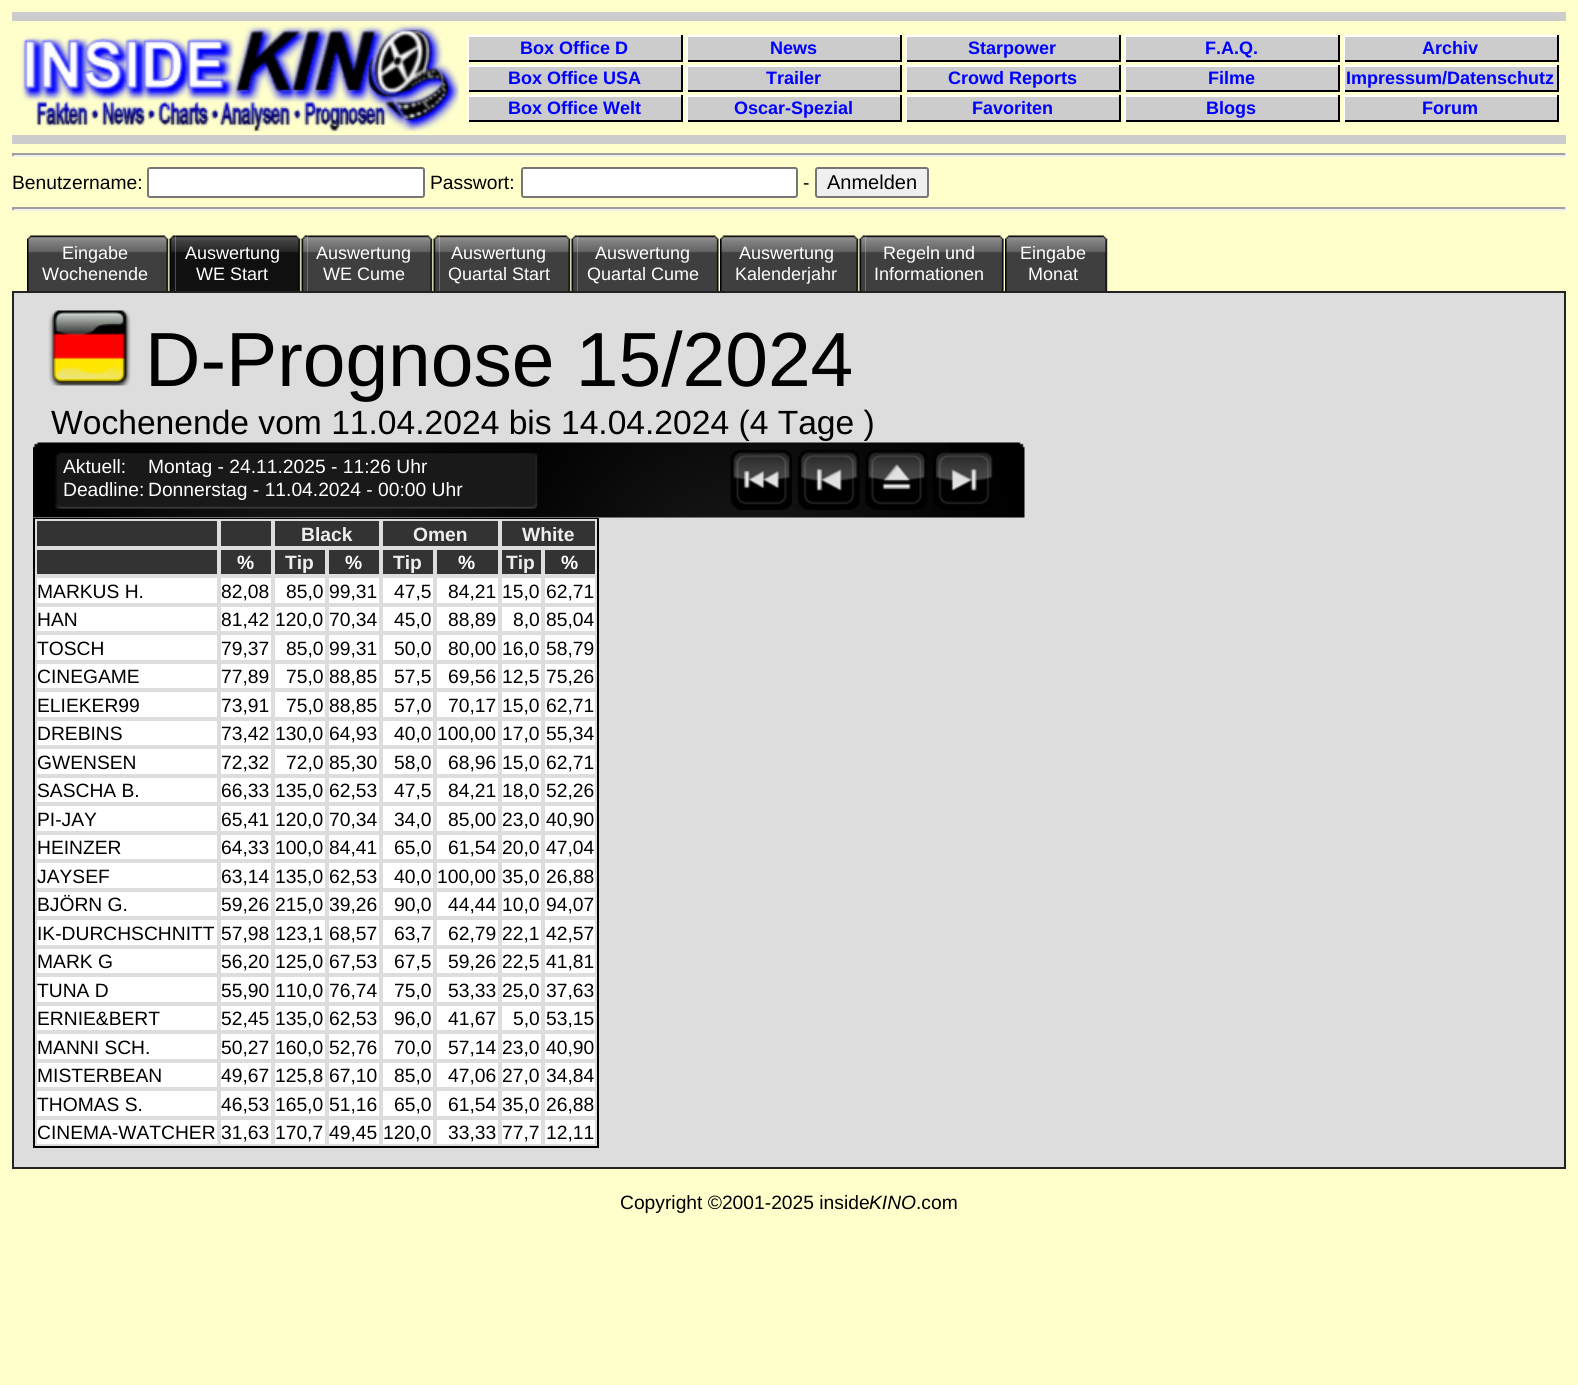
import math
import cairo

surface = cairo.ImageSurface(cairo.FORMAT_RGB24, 1578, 1385)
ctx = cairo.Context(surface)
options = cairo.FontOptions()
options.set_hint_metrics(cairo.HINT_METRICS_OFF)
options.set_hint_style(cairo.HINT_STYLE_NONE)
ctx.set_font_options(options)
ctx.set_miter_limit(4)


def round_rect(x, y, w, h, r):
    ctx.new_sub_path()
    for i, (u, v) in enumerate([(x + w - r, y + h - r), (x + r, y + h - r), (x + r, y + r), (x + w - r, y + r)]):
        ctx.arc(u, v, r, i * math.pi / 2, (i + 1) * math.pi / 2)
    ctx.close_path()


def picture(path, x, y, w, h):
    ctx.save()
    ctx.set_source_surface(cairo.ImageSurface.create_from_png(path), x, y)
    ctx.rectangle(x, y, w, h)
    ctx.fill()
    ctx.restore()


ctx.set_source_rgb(1, 1, 0.8)
ctx.paint()
ctx.set_source_rgb(0.8, 0.8, 0.8)
ctx.rectangle(12, 12, 1554, 9)
ctx.fill()
picture("img1.png", 21, 24, 438, 108)
ctx.rectangle(469, 37, 212, 23)
ctx.fill()
ctx.set_source_rgb(1, 1, 1)
ctx.rectangle(467, 35, 216, 2)
ctx.fill()
ctx.set_source_rgb(0, 0, 0)
ctx.rectangle(681, 35, 2, 27)
ctx.fill()
ctx.rectangle(467, 60, 216, 2)
ctx.fill()
ctx.set_source_rgb(1, 1, 1)
ctx.rectangle(467, 35, 2, 27)
ctx.fill()
ctx.select_font_face("Liberation Sans", cairo.FONT_SLANT_NORMAL, cairo.FONT_WEIGHT_BOLD)
ctx.set_font_size(18)
ctx.set_source_rgb(0, 0, 1)
ctx.move_to(520, 54)
ctx.show_text("Box Office D")
ctx.set_source_rgb(0.8, 0.8, 0.8)
ctx.rectangle(688, 37, 212, 23)
ctx.fill()
ctx.set_source_rgb(1, 1, 1)
ctx.rectangle(686, 35, 216, 2)
ctx.fill()
ctx.set_source_rgb(0, 0, 0)
ctx.rectangle(900, 35, 2, 27)
ctx.fill()
ctx.rectangle(686, 60, 216, 2)
ctx.fill()
ctx.set_source_rgb(1, 1, 1)
ctx.rectangle(686, 35, 2, 27)
ctx.fill()
ctx.set_source_rgb(0, 0, 1)
ctx.move_to(770, 54)
ctx.show_text("News")
ctx.set_source_rgb(0.8, 0.8, 0.8)
ctx.rectangle(907, 37, 212, 23)
ctx.fill()
ctx.set_source_rgb(1, 1, 1)
ctx.rectangle(905, 35, 216, 2)
ctx.fill()
ctx.set_source_rgb(0, 0, 0)
ctx.rectangle(1119, 35, 2, 27)
ctx.fill()
ctx.rectangle(905, 60, 216, 2)
ctx.fill()
ctx.set_source_rgb(1, 1, 1)
ctx.rectangle(905, 35, 2, 27)
ctx.fill()
ctx.set_source_rgb(0, 0, 1)
ctx.move_to(968, 54)
ctx.show_text("Starpower")
ctx.set_source_rgb(0.8, 0.8, 0.8)
ctx.rectangle(1126, 37, 212, 23)
ctx.fill()
ctx.set_source_rgb(1, 1, 1)
ctx.rectangle(1124, 35, 216, 2)
ctx.fill()
ctx.set_source_rgb(0, 0, 0)
ctx.rectangle(1338, 35, 2, 27)
ctx.fill()
ctx.rectangle(1124, 60, 216, 2)
ctx.fill()
ctx.set_source_rgb(1, 1, 1)
ctx.rectangle(1124, 35, 2, 27)
ctx.fill()
ctx.set_source_rgb(0, 0, 1)
ctx.move_to(1205, 54)
ctx.show_text("F.A.Q.")
ctx.set_source_rgb(0.8, 0.8, 0.8)
ctx.rectangle(1345, 37, 212, 23)
ctx.fill()
ctx.set_source_rgb(1, 1, 1)
ctx.rectangle(1343, 35, 216, 2)
ctx.fill()
ctx.set_source_rgb(0, 0, 0)
ctx.rectangle(1557, 35, 2, 27)
ctx.fill()
ctx.rectangle(1343, 60, 216, 2)
ctx.fill()
ctx.set_source_rgb(1, 1, 1)
ctx.rectangle(1343, 35, 2, 27)
ctx.fill()
ctx.set_source_rgb(0, 0, 1)
ctx.move_to(1422, 54)
ctx.show_text("Archiv")
ctx.set_source_rgb(0.8, 0.8, 0.8)
ctx.rectangle(469, 67, 212, 23)
ctx.fill()
ctx.set_source_rgb(1, 1, 1)
ctx.rectangle(467, 65, 216, 2)
ctx.fill()
ctx.set_source_rgb(0, 0, 0)
ctx.rectangle(681, 65, 2, 27)
ctx.fill()
ctx.rectangle(467, 90, 216, 2)
ctx.fill()
ctx.set_source_rgb(1, 1, 1)
ctx.rectangle(467, 65, 2, 27)
ctx.fill()
ctx.set_source_rgb(0, 0, 1)
ctx.move_to(508, 84)
ctx.show_text("Box Office USA")
ctx.set_source_rgb(0.8, 0.8, 0.8)
ctx.rectangle(688, 67, 212, 23)
ctx.fill()
ctx.set_source_rgb(1, 1, 1)
ctx.rectangle(686, 65, 216, 2)
ctx.fill()
ctx.set_source_rgb(0, 0, 0)
ctx.rectangle(900, 65, 2, 27)
ctx.fill()
ctx.rectangle(686, 90, 216, 2)
ctx.fill()
ctx.set_source_rgb(1, 1, 1)
ctx.rectangle(686, 65, 2, 27)
ctx.fill()
ctx.set_source_rgb(0, 0, 1)
ctx.move_to(766, 84)
ctx.show_text("Trailer")
ctx.set_source_rgb(0.8, 0.8, 0.8)
ctx.rectangle(907, 67, 212, 23)
ctx.fill()
ctx.set_source_rgb(1, 1, 1)
ctx.rectangle(905, 65, 216, 2)
ctx.fill()
ctx.set_source_rgb(0, 0, 0)
ctx.rectangle(1119, 65, 2, 27)
ctx.fill()
ctx.rectangle(905, 90, 216, 2)
ctx.fill()
ctx.set_source_rgb(1, 1, 1)
ctx.rectangle(905, 65, 2, 27)
ctx.fill()
ctx.set_source_rgb(0, 0, 1)
ctx.move_to(948, 84)
ctx.show_text("Crowd Reports")
ctx.set_source_rgb(0.8, 0.8, 0.8)
ctx.rectangle(1126, 67, 212, 23)
ctx.fill()
ctx.set_source_rgb(1, 1, 1)
ctx.rectangle(1124, 65, 216, 2)
ctx.fill()
ctx.set_source_rgb(0, 0, 0)
ctx.rectangle(1338, 65, 2, 27)
ctx.fill()
ctx.rectangle(1124, 90, 216, 2)
ctx.fill()
ctx.set_source_rgb(1, 1, 1)
ctx.rectangle(1124, 65, 2, 27)
ctx.fill()
ctx.set_source_rgb(0, 0, 1)
ctx.move_to(1208, 84)
ctx.show_text("Filme")
ctx.set_source_rgb(0.8, 0.8, 0.8)
ctx.rectangle(1345, 67, 212, 23)
ctx.fill()
ctx.set_source_rgb(1, 1, 1)
ctx.rectangle(1343, 65, 216, 2)
ctx.fill()
ctx.set_source_rgb(0, 0, 0)
ctx.rectangle(1557, 65, 2, 27)
ctx.fill()
ctx.rectangle(1343, 90, 216, 2)
ctx.fill()
ctx.set_source_rgb(1, 1, 1)
ctx.rectangle(1343, 65, 2, 27)
ctx.fill()
ctx.set_source_rgb(0, 0, 1)
ctx.move_to(1346, 84)
ctx.show_text("Impressum/Datenschutz")
ctx.set_source_rgb(0.8, 0.8, 0.8)
ctx.rectangle(469, 97, 212, 23)
ctx.fill()
ctx.set_source_rgb(1, 1, 1)
ctx.rectangle(467, 95, 216, 2)
ctx.fill()
ctx.set_source_rgb(0, 0, 0)
ctx.rectangle(681, 95, 2, 27)
ctx.fill()
ctx.rectangle(467, 120, 216, 2)
ctx.fill()
ctx.set_source_rgb(1, 1, 1)
ctx.rectangle(467, 95, 2, 27)
ctx.fill()
ctx.set_source_rgb(0, 0, 1)
ctx.move_to(508, 114)
ctx.show_text("Box Office Welt")
ctx.set_source_rgb(0.8, 0.8, 0.8)
ctx.rectangle(688, 97, 212, 23)
ctx.fill()
ctx.set_source_rgb(1, 1, 1)
ctx.rectangle(686, 95, 216, 2)
ctx.fill()
ctx.set_source_rgb(0, 0, 0)
ctx.rectangle(900, 95, 2, 27)
ctx.fill()
ctx.rectangle(686, 120, 216, 2)
ctx.fill()
ctx.set_source_rgb(1, 1, 1)
ctx.rectangle(686, 95, 2, 27)
ctx.fill()
ctx.set_source_rgb(0, 0, 1)
ctx.move_to(734, 114)
ctx.show_text("Oscar-Spezial")
ctx.set_source_rgb(0.8, 0.8, 0.8)
ctx.rectangle(907, 97, 212, 23)
ctx.fill()
ctx.set_source_rgb(1, 1, 1)
ctx.rectangle(905, 95, 216, 2)
ctx.fill()
ctx.set_source_rgb(0, 0, 0)
ctx.rectangle(1119, 95, 2, 27)
ctx.fill()
ctx.rectangle(905, 120, 216, 2)
ctx.fill()
ctx.set_source_rgb(1, 1, 1)
ctx.rectangle(905, 95, 2, 27)
ctx.fill()
ctx.set_source_rgb(0, 0, 1)
ctx.move_to(972, 114)
ctx.show_text("Favoriten")
ctx.set_source_rgb(0.8, 0.8, 0.8)
ctx.rectangle(1126, 97, 212, 23)
ctx.fill()
ctx.set_source_rgb(1, 1, 1)
ctx.rectangle(1124, 95, 216, 2)
ctx.fill()
ctx.set_source_rgb(0, 0, 0)
ctx.rectangle(1338, 95, 2, 27)
ctx.fill()
ctx.rectangle(1124, 120, 216, 2)
ctx.fill()
ctx.set_source_rgb(1, 1, 1)
ctx.rectangle(1124, 95, 2, 27)
ctx.fill()
ctx.set_source_rgb(0, 0, 1)
ctx.move_to(1206, 114)
ctx.show_text("Blogs")
ctx.set_source_rgb(0.8, 0.8, 0.8)
ctx.rectangle(1345, 97, 212, 23)
ctx.fill()
ctx.set_source_rgb(1, 1, 1)
ctx.rectangle(1343, 95, 216, 2)
ctx.fill()
ctx.set_source_rgb(0, 0, 0)
ctx.rectangle(1557, 95, 2, 27)
ctx.fill()
ctx.rectangle(1343, 120, 216, 2)
ctx.fill()
ctx.set_source_rgb(1, 1, 1)
ctx.rectangle(1343, 95, 2, 27)
ctx.fill()
ctx.set_source_rgb(0, 0, 1)
ctx.move_to(1422, 114)
ctx.show_text("Forum")
ctx.set_source_rgb(0.8, 0.8, 0.8)
ctx.rectangle(12, 135, 1554, 9)
ctx.fill()
ctx.set_source_rgb(0.624, 0.624, 0.624)
ctx.rectangle(12, 153, 1554, 2)
ctx.fill()
ctx.set_source_rgb(0.933, 0.933, 0.933)
ctx.rectangle(1565, 153, 2, 3)
ctx.fill()
ctx.rectangle(12, 155, 1554, 2)
ctx.fill()
ctx.set_source_rgb(0.624, 0.624, 0.624)
ctx.rectangle(12, 153, 2, 3)
ctx.fill()
ctx.select_font_face("Liberation Sans")
ctx.set_font_size(19.25)
ctx.set_source_rgb(0, 0, 0)
ctx.move_to(12, 189)
ctx.show_text("Benutzername:")
ctx.set_source_rgb(1, 1, 1)
round_rect(148, 168, 276, 29, 2)
ctx.fill_preserve()
ctx.set_source_rgb(0.463, 0.463, 0.463)
ctx.stroke()
ctx.set_source_rgb(0, 0, 0)
ctx.move_to(430, 189)
ctx.show_text("Passwort:")
ctx.set_source_rgb(1, 1, 1)
round_rect(522, 168, 275, 29, 2)
ctx.fill_preserve()
ctx.set_source_rgb(0.463, 0.463, 0.463)
ctx.stroke()
ctx.set_source_rgb(0, 0, 0)
ctx.move_to(803, 189)
ctx.show_text("-")
ctx.set_source_rgb(0.937, 0.937, 0.937)
round_rect(816, 168, 112, 29, 2)
ctx.fill_preserve()
ctx.set_source_rgb(0.463, 0.463, 0.463)
ctx.stroke()
ctx.set_font_size(20)
ctx.set_source_rgb(0, 0, 0)
ctx.move_to(827, 189)
ctx.show_text("Anmelden")
ctx.set_source_rgb(0.624, 0.624, 0.624)
ctx.rectangle(12, 207, 1554, 2)
ctx.fill()
ctx.set_source_rgb(0.933, 0.933, 0.933)
ctx.rectangle(1565, 207, 2, 3)
ctx.fill()
ctx.rectangle(12, 209, 1554, 2)
ctx.fill()
ctx.set_source_rgb(0.624, 0.624, 0.624)
ctx.rectangle(12, 207, 2, 3)
ctx.fill()
picture("img2.png", 27, 235, 6, 56)
picture("img3.png", 33, 235, 136, 56)
ctx.set_font_size(18)
ctx.set_source_rgb(1, 1, 1)
ctx.move_to(62, 259)
ctx.show_text("Eingabe")
ctx.move_to(42, 280)
ctx.show_text("Wochenende")
picture("img4.png", 169, 235, 7, 56)
picture("img5.png", 175, 235, 126, 56)
ctx.move_to(185, 259)
ctx.show_text("Auswertung")
ctx.move_to(196, 280)
ctx.show_text("WE Start")
picture("img6.png", 301, 235, 7, 56)
picture("img7.png", 307, 235, 126, 56)
ctx.move_to(316, 259)
ctx.show_text("Auswertung")
ctx.move_to(323, 280)
ctx.show_text("WE Cume")
picture("img8.png", 433, 235, 7, 56)
picture("img9.png", 439, 235, 132, 56)
ctx.move_to(451, 259)
ctx.show_text("Auswertung")
ctx.move_to(448, 280)
ctx.show_text("Quartal Start")
picture("img8.png", 571, 235, 7, 56)
picture("img10.png", 577, 235, 142, 56)
ctx.move_to(595, 259)
ctx.show_text("Auswertung")
ctx.move_to(587, 280)
ctx.show_text("Quartal Cume")
picture("img11.png", 720, 235, 6, 56)
picture("img12.png", 726, 235, 133, 56)
ctx.move_to(739, 259)
ctx.show_text("Auswertung")
ctx.move_to(735, 280)
ctx.show_text("Kalenderjahr")
picture("img6.png", 859, 235, 7, 56)
picture("img13.png", 865, 235, 139, 56)
ctx.move_to(883, 259)
ctx.show_text("Regeln und")
ctx.move_to(874, 280)
ctx.show_text("Informationen")
picture("img2.png", 1005, 235, 6, 56)
picture("img14.png", 1011, 235, 97, 56)
ctx.move_to(1020, 259)
ctx.show_text("Eingabe")
ctx.move_to(1028, 280)
ctx.show_text("Monat")
ctx.set_source_rgb(0.867, 0.867, 0.867)
ctx.rectangle(13, 292, 1552, 876)
ctx.fill_preserve()
ctx.set_source_rgb(0.133, 0.133, 0.133)
ctx.stroke()
picture("img15.png", 48, 310, 83, 76)
ctx.set_font_size(76.75)
ctx.set_source_rgb(0, 0, 0)
ctx.move_to(145, 386)
ctx.show_text("D-Prognose 15/2024")
ctx.set_font_size(33.6)
ctx.move_to(51, 434)
ctx.show_text("Wochenende vom 11.04.2024 bis 14.04.2024 (4 Tage )")
picture("img16.png", 33, 442, 992, 76)
ctx.set_font_size(19.25)
ctx.set_source_rgb(1, 1, 1)
ctx.move_to(63, 473)
ctx.show_text("Aktuell:")
ctx.move_to(148, 473)
ctx.show_text("Montag - 24.11.2025 - 11:26 Uhr")
ctx.move_to(63, 496)
ctx.show_text("Deadline:")
ctx.move_to(148, 496)
ctx.show_text("Donnerstag - 11.04.2024 - 00:00 Uhr")
picture("img17.png", 730, 450, 62, 60)
picture("img18.png", 798, 450, 62, 60)
picture("img19.png", 865, 450, 62, 60)
picture("img20.png", 933, 452, 60, 58)
ctx.rectangle(34, 519, 564, 628)
ctx.set_source_rgb(0, 0, 0)
ctx.stroke()
ctx.set_source_rgb(0.2, 0.2, 0.2)
ctx.rectangle(36, 520, 182, 27)
ctx.fill_preserve()
ctx.set_source_rgb(0.867, 0.867, 0.867)
ctx.stroke()
ctx.set_source_rgb(0.2, 0.2, 0.2)
ctx.rectangle(220, 520, 52, 27)
ctx.fill_preserve()
ctx.set_source_rgb(0.867, 0.867, 0.867)
ctx.stroke()
ctx.set_source_rgb(0.2, 0.2, 0.2)
ctx.rectangle(274, 520, 106, 27)
ctx.fill_preserve()
ctx.set_source_rgb(0.867, 0.867, 0.867)
ctx.stroke()
ctx.select_font_face("Liberation Sans", cairo.FONT_SLANT_NORMAL, cairo.FONT_WEIGHT_BOLD)
ctx.set_source_rgb(0.933, 0.933, 0.933)
ctx.move_to(301, 541)
ctx.show_text("Black")
ctx.set_source_rgb(0.2, 0.2, 0.2)
ctx.rectangle(382, 520, 117, 27)
ctx.fill_preserve()
ctx.set_source_rgb(0.867, 0.867, 0.867)
ctx.stroke()
ctx.set_source_rgb(0.933, 0.933, 0.933)
ctx.move_to(413, 541)
ctx.show_text("Omen")
ctx.set_source_rgb(0.2, 0.2, 0.2)
ctx.rectangle(501, 520, 95, 27)
ctx.fill_preserve()
ctx.set_source_rgb(0.867, 0.867, 0.867)
ctx.stroke()
ctx.set_source_rgb(0.933, 0.933, 0.933)
ctx.move_to(522, 541)
ctx.show_text("White")
ctx.set_source_rgb(0.2, 0.2, 0.2)
ctx.rectangle(37, 550, 180, 24)
ctx.fill()
ctx.rectangle(221, 550, 50, 24)
ctx.fill()
ctx.set_source_rgb(1, 1, 1)
ctx.move_to(237, 569)
ctx.show_text("%")
ctx.set_source_rgb(0.2, 0.2, 0.2)
ctx.rectangle(275, 550, 50, 24)
ctx.fill()
ctx.set_source_rgb(0.933, 0.933, 0.933)
ctx.move_to(285, 569)
ctx.show_text("Tip")
ctx.set_source_rgb(0.2, 0.2, 0.2)
ctx.rectangle(329, 550, 50, 24)
ctx.fill()
ctx.set_source_rgb(1, 1, 1)
ctx.move_to(345, 569)
ctx.show_text("%")
ctx.set_source_rgb(0.2, 0.2, 0.2)
ctx.rectangle(383, 550, 50, 24)
ctx.fill()
ctx.set_source_rgb(0.933, 0.933, 0.933)
ctx.move_to(393, 569)
ctx.show_text("Tip")
ctx.set_source_rgb(0.2, 0.2, 0.2)
ctx.rectangle(437, 550, 61, 24)
ctx.fill()
ctx.set_source_rgb(1, 1, 1)
ctx.move_to(458, 569)
ctx.show_text("%")
ctx.set_source_rgb(0.2, 0.2, 0.2)
ctx.rectangle(502, 550, 39, 24)
ctx.fill()
ctx.set_source_rgb(0.933, 0.933, 0.933)
ctx.move_to(506, 569)
ctx.show_text("Tip")
ctx.set_source_rgb(0.2, 0.2, 0.2)
ctx.rectangle(545, 550, 50, 24)
ctx.fill()
ctx.set_source_rgb(1, 1, 1)
ctx.move_to(561, 569)
ctx.show_text("%")
ctx.rectangle(37, 578, 180, 25)
ctx.fill()
ctx.select_font_face("Liberation Sans")
ctx.set_source_rgb(0, 0, 0)
ctx.move_to(37, 598)
ctx.show_text("MARKUS H.")
ctx.set_source_rgb(1, 1, 1)
ctx.rectangle(221, 578, 50, 25)
ctx.fill()
ctx.set_source_rgb(0, 0, 0)
ctx.move_to(221, 598)
ctx.show_text("82,08")
ctx.set_source_rgb(1, 1, 1)
ctx.rectangle(275, 578, 50, 25)
ctx.fill()
ctx.set_source_rgb(0, 0, 0)
ctx.move_to(286, 598)
ctx.show_text("85,0")
ctx.set_source_rgb(1, 1, 1)
ctx.rectangle(329, 578, 50, 25)
ctx.fill()
ctx.set_source_rgb(0, 0, 0)
ctx.move_to(329, 598)
ctx.show_text("99,31")
ctx.set_source_rgb(1, 1, 1)
ctx.rectangle(383, 578, 50, 25)
ctx.fill()
ctx.set_source_rgb(0, 0, 0)
ctx.move_to(394, 598)
ctx.show_text("47,5")
ctx.set_source_rgb(1, 1, 1)
ctx.rectangle(437, 578, 61, 25)
ctx.fill()
ctx.set_source_rgb(0, 0, 0)
ctx.move_to(448, 598)
ctx.show_text("84,21")
ctx.set_source_rgb(1, 1, 1)
ctx.rectangle(502, 578, 39, 25)
ctx.fill()
ctx.set_source_rgb(0, 0, 0)
ctx.move_to(502, 598)
ctx.show_text("15,0")
ctx.set_source_rgb(1, 1, 1)
ctx.rectangle(545, 578, 50, 25)
ctx.fill()
ctx.set_source_rgb(0, 0, 0)
ctx.move_to(546, 598)
ctx.show_text("62,71")
ctx.set_source_rgb(1, 1, 1)
ctx.rectangle(37, 607, 180, 24)
ctx.fill()
ctx.set_source_rgb(0, 0, 0)
ctx.move_to(37, 626)
ctx.show_text("HAN")
ctx.set_source_rgb(1, 1, 1)
ctx.rectangle(221, 607, 50, 24)
ctx.fill()
ctx.set_source_rgb(0, 0, 0)
ctx.move_to(221, 626)
ctx.show_text("81,42")
ctx.set_source_rgb(1, 1, 1)
ctx.rectangle(275, 607, 50, 24)
ctx.fill()
ctx.set_source_rgb(0, 0, 0)
ctx.move_to(275, 626)
ctx.show_text("120,0")
ctx.set_source_rgb(1, 1, 1)
ctx.rectangle(329, 607, 50, 24)
ctx.fill()
ctx.set_source_rgb(0, 0, 0)
ctx.move_to(329, 626)
ctx.show_text("70,34")
ctx.set_source_rgb(1, 1, 1)
ctx.rectangle(383, 607, 50, 24)
ctx.fill()
ctx.set_source_rgb(0, 0, 0)
ctx.move_to(394, 626)
ctx.show_text("45,0")
ctx.set_source_rgb(1, 1, 1)
ctx.rectangle(437, 607, 61, 24)
ctx.fill()
ctx.set_source_rgb(0, 0, 0)
ctx.move_to(448, 626)
ctx.show_text("88,89")
ctx.set_source_rgb(1, 1, 1)
ctx.rectangle(502, 607, 39, 24)
ctx.fill()
ctx.set_source_rgb(0, 0, 0)
ctx.move_to(513, 626)
ctx.show_text("8,0")
ctx.set_source_rgb(1, 1, 1)
ctx.rectangle(545, 607, 50, 24)
ctx.fill()
ctx.set_source_rgb(0, 0, 0)
ctx.move_to(546, 626)
ctx.show_text("85,04")
ctx.set_source_rgb(1, 1, 1)
ctx.rectangle(37, 635, 180, 25)
ctx.fill()
ctx.set_source_rgb(0, 0, 0)
ctx.move_to(37, 655)
ctx.show_text("TOSCH")
ctx.set_source_rgb(1, 1, 1)
ctx.rectangle(221, 635, 50, 25)
ctx.fill()
ctx.set_source_rgb(0, 0, 0)
ctx.move_to(221, 655)
ctx.show_text("79,37")
ctx.set_source_rgb(1, 1, 1)
ctx.rectangle(275, 635, 50, 25)
ctx.fill()
ctx.set_source_rgb(0, 0, 0)
ctx.move_to(286, 655)
ctx.show_text("85,0")
ctx.set_source_rgb(1, 1, 1)
ctx.rectangle(329, 635, 50, 25)
ctx.fill()
ctx.set_source_rgb(0, 0, 0)
ctx.move_to(329, 655)
ctx.show_text("99,31")
ctx.set_source_rgb(1, 1, 1)
ctx.rectangle(383, 635, 50, 25)
ctx.fill()
ctx.set_source_rgb(0, 0, 0)
ctx.move_to(394, 655)
ctx.show_text("50,0")
ctx.set_source_rgb(1, 1, 1)
ctx.rectangle(437, 635, 61, 25)
ctx.fill()
ctx.set_source_rgb(0, 0, 0)
ctx.move_to(448, 655)
ctx.show_text("80,00")
ctx.set_source_rgb(1, 1, 1)
ctx.rectangle(502, 635, 39, 25)
ctx.fill()
ctx.set_source_rgb(0, 0, 0)
ctx.move_to(502, 655)
ctx.show_text("16,0")
ctx.set_source_rgb(1, 1, 1)
ctx.rectangle(545, 635, 50, 25)
ctx.fill()
ctx.set_source_rgb(0, 0, 0)
ctx.move_to(546, 655)
ctx.show_text("58,79")
ctx.set_source_rgb(1, 1, 1)
ctx.rectangle(37, 664, 180, 24)
ctx.fill()
ctx.set_source_rgb(0, 0, 0)
ctx.move_to(37, 683)
ctx.show_text("CINEGAME")
ctx.set_source_rgb(1, 1, 1)
ctx.rectangle(221, 664, 50, 24)
ctx.fill()
ctx.set_source_rgb(0, 0, 0)
ctx.move_to(221, 683)
ctx.show_text("77,89")
ctx.set_source_rgb(1, 1, 1)
ctx.rectangle(275, 664, 50, 24)
ctx.fill()
ctx.set_source_rgb(0, 0, 0)
ctx.move_to(286, 683)
ctx.show_text("75,0")
ctx.set_source_rgb(1, 1, 1)
ctx.rectangle(329, 664, 50, 24)
ctx.fill()
ctx.set_source_rgb(0, 0, 0)
ctx.move_to(329, 683)
ctx.show_text("88,85")
ctx.set_source_rgb(1, 1, 1)
ctx.rectangle(383, 664, 50, 24)
ctx.fill()
ctx.set_source_rgb(0, 0, 0)
ctx.move_to(394, 683)
ctx.show_text("57,5")
ctx.set_source_rgb(1, 1, 1)
ctx.rectangle(437, 664, 61, 24)
ctx.fill()
ctx.set_source_rgb(0, 0, 0)
ctx.move_to(448, 683)
ctx.show_text("69,56")
ctx.set_source_rgb(1, 1, 1)
ctx.rectangle(502, 664, 39, 24)
ctx.fill()
ctx.set_source_rgb(0, 0, 0)
ctx.move_to(502, 683)
ctx.show_text("12,5")
ctx.set_source_rgb(1, 1, 1)
ctx.rectangle(545, 664, 50, 24)
ctx.fill()
ctx.set_source_rgb(0, 0, 0)
ctx.move_to(546, 683)
ctx.show_text("75,26")
ctx.set_source_rgb(1, 1, 1)
ctx.rectangle(37, 692, 180, 25)
ctx.fill()
ctx.set_source_rgb(0, 0, 0)
ctx.move_to(37, 712)
ctx.show_text("ELIEKER99")
ctx.set_source_rgb(1, 1, 1)
ctx.rectangle(221, 692, 50, 25)
ctx.fill()
ctx.set_source_rgb(0, 0, 0)
ctx.move_to(221, 712)
ctx.show_text("73,91")
ctx.set_source_rgb(1, 1, 1)
ctx.rectangle(275, 692, 50, 25)
ctx.fill()
ctx.set_source_rgb(0, 0, 0)
ctx.move_to(286, 712)
ctx.show_text("75,0")
ctx.set_source_rgb(1, 1, 1)
ctx.rectangle(329, 692, 50, 25)
ctx.fill()
ctx.set_source_rgb(0, 0, 0)
ctx.move_to(329, 712)
ctx.show_text("88,85")
ctx.set_source_rgb(1, 1, 1)
ctx.rectangle(383, 692, 50, 25)
ctx.fill()
ctx.set_source_rgb(0, 0, 0)
ctx.move_to(394, 712)
ctx.show_text("57,0")
ctx.set_source_rgb(1, 1, 1)
ctx.rectangle(437, 692, 61, 25)
ctx.fill()
ctx.set_source_rgb(0, 0, 0)
ctx.move_to(448, 712)
ctx.show_text("70,17")
ctx.set_source_rgb(1, 1, 1)
ctx.rectangle(502, 692, 39, 25)
ctx.fill()
ctx.set_source_rgb(0, 0, 0)
ctx.move_to(502, 712)
ctx.show_text("15,0")
ctx.set_source_rgb(1, 1, 1)
ctx.rectangle(545, 692, 50, 25)
ctx.fill()
ctx.set_source_rgb(0, 0, 0)
ctx.move_to(546, 712)
ctx.show_text("62,71")
ctx.set_source_rgb(1, 1, 1)
ctx.rectangle(37, 721, 180, 24)
ctx.fill()
ctx.set_source_rgb(0, 0, 0)
ctx.move_to(37, 740)
ctx.show_text("DREBINS")
ctx.set_source_rgb(1, 1, 1)
ctx.rectangle(221, 721, 50, 24)
ctx.fill()
ctx.set_source_rgb(0, 0, 0)
ctx.move_to(221, 740)
ctx.show_text("73,42")
ctx.set_source_rgb(1, 1, 1)
ctx.rectangle(275, 721, 50, 24)
ctx.fill()
ctx.set_source_rgb(0, 0, 0)
ctx.move_to(275, 740)
ctx.show_text("130,0")
ctx.set_source_rgb(1, 1, 1)
ctx.rectangle(329, 721, 50, 24)
ctx.fill()
ctx.set_source_rgb(0, 0, 0)
ctx.move_to(329, 740)
ctx.show_text("64,93")
ctx.set_source_rgb(1, 1, 1)
ctx.rectangle(383, 721, 50, 24)
ctx.fill()
ctx.set_source_rgb(0, 0, 0)
ctx.move_to(394, 740)
ctx.show_text("40,0")
ctx.set_source_rgb(1, 1, 1)
ctx.rectangle(437, 721, 61, 24)
ctx.fill()
ctx.set_source_rgb(0, 0, 0)
ctx.move_to(437, 740)
ctx.show_text("100,00")
ctx.set_source_rgb(1, 1, 1)
ctx.rectangle(502, 721, 39, 24)
ctx.fill()
ctx.set_source_rgb(0, 0, 0)
ctx.move_to(502, 740)
ctx.show_text("17,0")
ctx.set_source_rgb(1, 1, 1)
ctx.rectangle(545, 721, 50, 24)
ctx.fill()
ctx.set_source_rgb(0, 0, 0)
ctx.move_to(546, 740)
ctx.show_text("55,34")
ctx.set_source_rgb(1, 1, 1)
ctx.rectangle(37, 749, 180, 25)
ctx.fill()
ctx.set_source_rgb(0, 0, 0)
ctx.move_to(37, 769)
ctx.show_text("GWENSEN")
ctx.set_source_rgb(1, 1, 1)
ctx.rectangle(221, 749, 50, 25)
ctx.fill()
ctx.set_source_rgb(0, 0, 0)
ctx.move_to(221, 769)
ctx.show_text("72,32")
ctx.set_source_rgb(1, 1, 1)
ctx.rectangle(275, 749, 50, 25)
ctx.fill()
ctx.set_source_rgb(0, 0, 0)
ctx.move_to(286, 769)
ctx.show_text("72,0")
ctx.set_source_rgb(1, 1, 1)
ctx.rectangle(329, 749, 50, 25)
ctx.fill()
ctx.set_source_rgb(0, 0, 0)
ctx.move_to(329, 769)
ctx.show_text("85,30")
ctx.set_source_rgb(1, 1, 1)
ctx.rectangle(383, 749, 50, 25)
ctx.fill()
ctx.set_source_rgb(0, 0, 0)
ctx.move_to(394, 769)
ctx.show_text("58,0")
ctx.set_source_rgb(1, 1, 1)
ctx.rectangle(437, 749, 61, 25)
ctx.fill()
ctx.set_source_rgb(0, 0, 0)
ctx.move_to(448, 769)
ctx.show_text("68,96")
ctx.set_source_rgb(1, 1, 1)
ctx.rectangle(502, 749, 39, 25)
ctx.fill()
ctx.set_source_rgb(0, 0, 0)
ctx.move_to(502, 769)
ctx.show_text("15,0")
ctx.set_source_rgb(1, 1, 1)
ctx.rectangle(545, 749, 50, 25)
ctx.fill()
ctx.set_source_rgb(0, 0, 0)
ctx.move_to(546, 769)
ctx.show_text("62,71")
ctx.set_source_rgb(1, 1, 1)
ctx.rectangle(37, 778, 180, 24)
ctx.fill()
ctx.set_source_rgb(0, 0, 0)
ctx.move_to(37, 797)
ctx.show_text("SASCHA B.")
ctx.set_source_rgb(1, 1, 1)
ctx.rectangle(221, 778, 50, 24)
ctx.fill()
ctx.set_source_rgb(0, 0, 0)
ctx.move_to(221, 797)
ctx.show_text("66,33")
ctx.set_source_rgb(1, 1, 1)
ctx.rectangle(275, 778, 50, 24)
ctx.fill()
ctx.set_source_rgb(0, 0, 0)
ctx.move_to(275, 797)
ctx.show_text("135,0")
ctx.set_source_rgb(1, 1, 1)
ctx.rectangle(329, 778, 50, 24)
ctx.fill()
ctx.set_source_rgb(0, 0, 0)
ctx.move_to(329, 797)
ctx.show_text("62,53")
ctx.set_source_rgb(1, 1, 1)
ctx.rectangle(383, 778, 50, 24)
ctx.fill()
ctx.set_source_rgb(0, 0, 0)
ctx.move_to(394, 797)
ctx.show_text("47,5")
ctx.set_source_rgb(1, 1, 1)
ctx.rectangle(437, 778, 61, 24)
ctx.fill()
ctx.set_source_rgb(0, 0, 0)
ctx.move_to(448, 797)
ctx.show_text("84,21")
ctx.set_source_rgb(1, 1, 1)
ctx.rectangle(502, 778, 39, 24)
ctx.fill()
ctx.set_source_rgb(0, 0, 0)
ctx.move_to(502, 797)
ctx.show_text("18,0")
ctx.set_source_rgb(1, 1, 1)
ctx.rectangle(545, 778, 50, 24)
ctx.fill()
ctx.set_source_rgb(0, 0, 0)
ctx.move_to(546, 797)
ctx.show_text("52,26")
ctx.set_source_rgb(1, 1, 1)
ctx.rectangle(37, 806, 180, 25)
ctx.fill()
ctx.set_source_rgb(0, 0, 0)
ctx.move_to(37, 826)
ctx.show_text("PI-JAY")
ctx.set_source_rgb(1, 1, 1)
ctx.rectangle(221, 806, 50, 25)
ctx.fill()
ctx.set_source_rgb(0, 0, 0)
ctx.move_to(221, 826)
ctx.show_text("65,41")
ctx.set_source_rgb(1, 1, 1)
ctx.rectangle(275, 806, 50, 25)
ctx.fill()
ctx.set_source_rgb(0, 0, 0)
ctx.move_to(275, 826)
ctx.show_text("120,0")
ctx.set_source_rgb(1, 1, 1)
ctx.rectangle(329, 806, 50, 25)
ctx.fill()
ctx.set_source_rgb(0, 0, 0)
ctx.move_to(329, 826)
ctx.show_text("70,34")
ctx.set_source_rgb(1, 1, 1)
ctx.rectangle(383, 806, 50, 25)
ctx.fill()
ctx.set_source_rgb(0, 0, 0)
ctx.move_to(394, 826)
ctx.show_text("34,0")
ctx.set_source_rgb(1, 1, 1)
ctx.rectangle(437, 806, 61, 25)
ctx.fill()
ctx.set_source_rgb(0, 0, 0)
ctx.move_to(448, 826)
ctx.show_text("85,00")
ctx.set_source_rgb(1, 1, 1)
ctx.rectangle(502, 806, 39, 25)
ctx.fill()
ctx.set_source_rgb(0, 0, 0)
ctx.move_to(502, 826)
ctx.show_text("23,0")
ctx.set_source_rgb(1, 1, 1)
ctx.rectangle(545, 806, 50, 25)
ctx.fill()
ctx.set_source_rgb(0, 0, 0)
ctx.move_to(546, 826)
ctx.show_text("40,90")
ctx.set_source_rgb(1, 1, 1)
ctx.rectangle(37, 835, 180, 24)
ctx.fill()
ctx.set_source_rgb(0, 0, 0)
ctx.move_to(37, 854)
ctx.show_text("HEINZER")
ctx.set_source_rgb(1, 1, 1)
ctx.rectangle(221, 835, 50, 24)
ctx.fill()
ctx.set_source_rgb(0, 0, 0)
ctx.move_to(221, 854)
ctx.show_text("64,33")
ctx.set_source_rgb(1, 1, 1)
ctx.rectangle(275, 835, 50, 24)
ctx.fill()
ctx.set_source_rgb(0, 0, 0)
ctx.move_to(275, 854)
ctx.show_text("100,0")
ctx.set_source_rgb(1, 1, 1)
ctx.rectangle(329, 835, 50, 24)
ctx.fill()
ctx.set_source_rgb(0, 0, 0)
ctx.move_to(329, 854)
ctx.show_text("84,41")
ctx.set_source_rgb(1, 1, 1)
ctx.rectangle(383, 835, 50, 24)
ctx.fill()
ctx.set_source_rgb(0, 0, 0)
ctx.move_to(394, 854)
ctx.show_text("65,0")
ctx.set_source_rgb(1, 1, 1)
ctx.rectangle(437, 835, 61, 24)
ctx.fill()
ctx.set_source_rgb(0, 0, 0)
ctx.move_to(448, 854)
ctx.show_text("61,54")
ctx.set_source_rgb(1, 1, 1)
ctx.rectangle(502, 835, 39, 24)
ctx.fill()
ctx.set_source_rgb(0, 0, 0)
ctx.move_to(502, 854)
ctx.show_text("20,0")
ctx.set_source_rgb(1, 1, 1)
ctx.rectangle(545, 835, 50, 24)
ctx.fill()
ctx.set_source_rgb(0, 0, 0)
ctx.move_to(546, 854)
ctx.show_text("47,04")
ctx.set_source_rgb(1, 1, 1)
ctx.rectangle(37, 863, 180, 25)
ctx.fill()
ctx.set_source_rgb(0, 0, 0)
ctx.move_to(37, 883)
ctx.show_text("JAYSEF")
ctx.set_source_rgb(1, 1, 1)
ctx.rectangle(221, 863, 50, 25)
ctx.fill()
ctx.set_source_rgb(0, 0, 0)
ctx.move_to(221, 883)
ctx.show_text("63,14")
ctx.set_source_rgb(1, 1, 1)
ctx.rectangle(275, 863, 50, 25)
ctx.fill()
ctx.set_source_rgb(0, 0, 0)
ctx.move_to(275, 883)
ctx.show_text("135,0")
ctx.set_source_rgb(1, 1, 1)
ctx.rectangle(329, 863, 50, 25)
ctx.fill()
ctx.set_source_rgb(0, 0, 0)
ctx.move_to(329, 883)
ctx.show_text("62,53")
ctx.set_source_rgb(1, 1, 1)
ctx.rectangle(383, 863, 50, 25)
ctx.fill()
ctx.set_source_rgb(0, 0, 0)
ctx.move_to(394, 883)
ctx.show_text("40,0")
ctx.set_source_rgb(1, 1, 1)
ctx.rectangle(437, 863, 61, 25)
ctx.fill()
ctx.set_source_rgb(0, 0, 0)
ctx.move_to(437, 883)
ctx.show_text("100,00")
ctx.set_source_rgb(1, 1, 1)
ctx.rectangle(502, 863, 39, 25)
ctx.fill()
ctx.set_source_rgb(0, 0, 0)
ctx.move_to(502, 883)
ctx.show_text("35,0")
ctx.set_source_rgb(1, 1, 1)
ctx.rectangle(545, 863, 50, 25)
ctx.fill()
ctx.set_source_rgb(0, 0, 0)
ctx.move_to(546, 883)
ctx.show_text("26,88")
ctx.set_source_rgb(1, 1, 1)
ctx.rectangle(37, 892, 180, 24)
ctx.fill()
ctx.set_source_rgb(0, 0, 0)
ctx.move_to(37, 911)
ctx.show_text("BJÖRN G.")
ctx.set_source_rgb(1, 1, 1)
ctx.rectangle(221, 892, 50, 24)
ctx.fill()
ctx.set_source_rgb(0, 0, 0)
ctx.move_to(221, 911)
ctx.show_text("59,26")
ctx.set_source_rgb(1, 1, 1)
ctx.rectangle(275, 892, 50, 24)
ctx.fill()
ctx.set_source_rgb(0, 0, 0)
ctx.move_to(275, 911)
ctx.show_text("215,0")
ctx.set_source_rgb(1, 1, 1)
ctx.rectangle(329, 892, 50, 24)
ctx.fill()
ctx.set_source_rgb(0, 0, 0)
ctx.move_to(329, 911)
ctx.show_text("39,26")
ctx.set_source_rgb(1, 1, 1)
ctx.rectangle(383, 892, 50, 24)
ctx.fill()
ctx.set_source_rgb(0, 0, 0)
ctx.move_to(394, 911)
ctx.show_text("90,0")
ctx.set_source_rgb(1, 1, 1)
ctx.rectangle(437, 892, 61, 24)
ctx.fill()
ctx.set_source_rgb(0, 0, 0)
ctx.move_to(448, 911)
ctx.show_text("44,44")
ctx.set_source_rgb(1, 1, 1)
ctx.rectangle(502, 892, 39, 24)
ctx.fill()
ctx.set_source_rgb(0, 0, 0)
ctx.move_to(502, 911)
ctx.show_text("10,0")
ctx.set_source_rgb(1, 1, 1)
ctx.rectangle(545, 892, 50, 24)
ctx.fill()
ctx.set_source_rgb(0, 0, 0)
ctx.move_to(546, 911)
ctx.show_text("94,07")
ctx.set_source_rgb(1, 1, 1)
ctx.rectangle(37, 920, 180, 25)
ctx.fill()
ctx.set_source_rgb(0, 0, 0)
ctx.move_to(37, 940)
ctx.show_text("IK-DURCHSCHNITT")
ctx.set_source_rgb(1, 1, 1)
ctx.rectangle(221, 920, 50, 25)
ctx.fill()
ctx.set_source_rgb(0, 0, 0)
ctx.move_to(221, 940)
ctx.show_text("57,98")
ctx.set_source_rgb(1, 1, 1)
ctx.rectangle(275, 920, 50, 25)
ctx.fill()
ctx.set_source_rgb(0, 0, 0)
ctx.move_to(275, 940)
ctx.show_text("123,1")
ctx.set_source_rgb(1, 1, 1)
ctx.rectangle(329, 920, 50, 25)
ctx.fill()
ctx.set_source_rgb(0, 0, 0)
ctx.move_to(329, 940)
ctx.show_text("68,57")
ctx.set_source_rgb(1, 1, 1)
ctx.rectangle(383, 920, 50, 25)
ctx.fill()
ctx.set_source_rgb(0, 0, 0)
ctx.move_to(394, 940)
ctx.show_text("63,7")
ctx.set_source_rgb(1, 1, 1)
ctx.rectangle(437, 920, 61, 25)
ctx.fill()
ctx.set_source_rgb(0, 0, 0)
ctx.move_to(448, 940)
ctx.show_text("62,79")
ctx.set_source_rgb(1, 1, 1)
ctx.rectangle(502, 920, 39, 25)
ctx.fill()
ctx.set_source_rgb(0, 0, 0)
ctx.move_to(502, 940)
ctx.show_text("22,1")
ctx.set_source_rgb(1, 1, 1)
ctx.rectangle(545, 920, 50, 25)
ctx.fill()
ctx.set_source_rgb(0, 0, 0)
ctx.move_to(546, 940)
ctx.show_text("42,57")
ctx.set_source_rgb(1, 1, 1)
ctx.rectangle(37, 949, 180, 24)
ctx.fill()
ctx.set_source_rgb(0, 0, 0)
ctx.move_to(37, 968)
ctx.show_text("MARK G")
ctx.set_source_rgb(1, 1, 1)
ctx.rectangle(221, 949, 50, 24)
ctx.fill()
ctx.set_source_rgb(0, 0, 0)
ctx.move_to(221, 968)
ctx.show_text("56,20")
ctx.set_source_rgb(1, 1, 1)
ctx.rectangle(275, 949, 50, 24)
ctx.fill()
ctx.set_source_rgb(0, 0, 0)
ctx.move_to(275, 968)
ctx.show_text("125,0")
ctx.set_source_rgb(1, 1, 1)
ctx.rectangle(329, 949, 50, 24)
ctx.fill()
ctx.set_source_rgb(0, 0, 0)
ctx.move_to(329, 968)
ctx.show_text("67,53")
ctx.set_source_rgb(1, 1, 1)
ctx.rectangle(383, 949, 50, 24)
ctx.fill()
ctx.set_source_rgb(0, 0, 0)
ctx.move_to(394, 968)
ctx.show_text("67,5")
ctx.set_source_rgb(1, 1, 1)
ctx.rectangle(437, 949, 61, 24)
ctx.fill()
ctx.set_source_rgb(0, 0, 0)
ctx.move_to(448, 968)
ctx.show_text("59,26")
ctx.set_source_rgb(1, 1, 1)
ctx.rectangle(502, 949, 39, 24)
ctx.fill()
ctx.set_source_rgb(0, 0, 0)
ctx.move_to(502, 968)
ctx.show_text("22,5")
ctx.set_source_rgb(1, 1, 1)
ctx.rectangle(545, 949, 50, 24)
ctx.fill()
ctx.set_source_rgb(0, 0, 0)
ctx.move_to(546, 968)
ctx.show_text("41,81")
ctx.set_source_rgb(1, 1, 1)
ctx.rectangle(37, 977, 180, 25)
ctx.fill()
ctx.set_source_rgb(0, 0, 0)
ctx.move_to(37, 997)
ctx.show_text("TUNA D")
ctx.set_source_rgb(1, 1, 1)
ctx.rectangle(221, 977, 50, 25)
ctx.fill()
ctx.set_source_rgb(0, 0, 0)
ctx.move_to(221, 997)
ctx.show_text("55,90")
ctx.set_source_rgb(1, 1, 1)
ctx.rectangle(275, 977, 50, 25)
ctx.fill()
ctx.set_source_rgb(0, 0, 0)
ctx.move_to(275, 997)
ctx.show_text("110,0")
ctx.set_source_rgb(1, 1, 1)
ctx.rectangle(329, 977, 50, 25)
ctx.fill()
ctx.set_source_rgb(0, 0, 0)
ctx.move_to(329, 997)
ctx.show_text("76,74")
ctx.set_source_rgb(1, 1, 1)
ctx.rectangle(383, 977, 50, 25)
ctx.fill()
ctx.set_source_rgb(0, 0, 0)
ctx.move_to(394, 997)
ctx.show_text("75,0")
ctx.set_source_rgb(1, 1, 1)
ctx.rectangle(437, 977, 61, 25)
ctx.fill()
ctx.set_source_rgb(0, 0, 0)
ctx.move_to(448, 997)
ctx.show_text("53,33")
ctx.set_source_rgb(1, 1, 1)
ctx.rectangle(502, 977, 39, 25)
ctx.fill()
ctx.set_source_rgb(0, 0, 0)
ctx.move_to(502, 997)
ctx.show_text("25,0")
ctx.set_source_rgb(1, 1, 1)
ctx.rectangle(545, 977, 50, 25)
ctx.fill()
ctx.set_source_rgb(0, 0, 0)
ctx.move_to(546, 997)
ctx.show_text("37,63")
ctx.set_source_rgb(1, 1, 1)
ctx.rectangle(37, 1006, 180, 24)
ctx.fill()
ctx.set_source_rgb(0, 0, 0)
ctx.move_to(37, 1025)
ctx.show_text("ERNIE&BERT")
ctx.set_source_rgb(1, 1, 1)
ctx.rectangle(221, 1006, 50, 24)
ctx.fill()
ctx.set_source_rgb(0, 0, 0)
ctx.move_to(221, 1025)
ctx.show_text("52,45")
ctx.set_source_rgb(1, 1, 1)
ctx.rectangle(275, 1006, 50, 24)
ctx.fill()
ctx.set_source_rgb(0, 0, 0)
ctx.move_to(275, 1025)
ctx.show_text("135,0")
ctx.set_source_rgb(1, 1, 1)
ctx.rectangle(329, 1006, 50, 24)
ctx.fill()
ctx.set_source_rgb(0, 0, 0)
ctx.move_to(329, 1025)
ctx.show_text("62,53")
ctx.set_source_rgb(1, 1, 1)
ctx.rectangle(383, 1006, 50, 24)
ctx.fill()
ctx.set_source_rgb(0, 0, 0)
ctx.move_to(394, 1025)
ctx.show_text("96,0")
ctx.set_source_rgb(1, 1, 1)
ctx.rectangle(437, 1006, 61, 24)
ctx.fill()
ctx.set_source_rgb(0, 0, 0)
ctx.move_to(448, 1025)
ctx.show_text("41,67")
ctx.set_source_rgb(1, 1, 1)
ctx.rectangle(502, 1006, 39, 24)
ctx.fill()
ctx.set_source_rgb(0, 0, 0)
ctx.move_to(513, 1025)
ctx.show_text("5,0")
ctx.set_source_rgb(1, 1, 1)
ctx.rectangle(545, 1006, 50, 24)
ctx.fill()
ctx.set_source_rgb(0, 0, 0)
ctx.move_to(546, 1025)
ctx.show_text("53,15")
ctx.set_source_rgb(1, 1, 1)
ctx.rectangle(37, 1034, 180, 25)
ctx.fill()
ctx.set_source_rgb(0, 0, 0)
ctx.move_to(37, 1054)
ctx.show_text("MANNI SCH.")
ctx.set_source_rgb(1, 1, 1)
ctx.rectangle(221, 1034, 50, 25)
ctx.fill()
ctx.set_source_rgb(0, 0, 0)
ctx.move_to(221, 1054)
ctx.show_text("50,27")
ctx.set_source_rgb(1, 1, 1)
ctx.rectangle(275, 1034, 50, 25)
ctx.fill()
ctx.set_source_rgb(0, 0, 0)
ctx.move_to(275, 1054)
ctx.show_text("160,0")
ctx.set_source_rgb(1, 1, 1)
ctx.rectangle(329, 1034, 50, 25)
ctx.fill()
ctx.set_source_rgb(0, 0, 0)
ctx.move_to(329, 1054)
ctx.show_text("52,76")
ctx.set_source_rgb(1, 1, 1)
ctx.rectangle(383, 1034, 50, 25)
ctx.fill()
ctx.set_source_rgb(0, 0, 0)
ctx.move_to(394, 1054)
ctx.show_text("70,0")
ctx.set_source_rgb(1, 1, 1)
ctx.rectangle(437, 1034, 61, 25)
ctx.fill()
ctx.set_source_rgb(0, 0, 0)
ctx.move_to(448, 1054)
ctx.show_text("57,14")
ctx.set_source_rgb(1, 1, 1)
ctx.rectangle(502, 1034, 39, 25)
ctx.fill()
ctx.set_source_rgb(0, 0, 0)
ctx.move_to(502, 1054)
ctx.show_text("23,0")
ctx.set_source_rgb(1, 1, 1)
ctx.rectangle(545, 1034, 50, 25)
ctx.fill()
ctx.set_source_rgb(0, 0, 0)
ctx.move_to(546, 1054)
ctx.show_text("40,90")
ctx.set_source_rgb(1, 1, 1)
ctx.rectangle(37, 1063, 180, 24)
ctx.fill()
ctx.set_source_rgb(0, 0, 0)
ctx.move_to(37, 1082)
ctx.show_text("MISTERBEAN")
ctx.set_source_rgb(1, 1, 1)
ctx.rectangle(221, 1063, 50, 24)
ctx.fill()
ctx.set_source_rgb(0, 0, 0)
ctx.move_to(221, 1082)
ctx.show_text("49,67")
ctx.set_source_rgb(1, 1, 1)
ctx.rectangle(275, 1063, 50, 24)
ctx.fill()
ctx.set_source_rgb(0, 0, 0)
ctx.move_to(275, 1082)
ctx.show_text("125,8")
ctx.set_source_rgb(1, 1, 1)
ctx.rectangle(329, 1063, 50, 24)
ctx.fill()
ctx.set_source_rgb(0, 0, 0)
ctx.move_to(329, 1082)
ctx.show_text("67,10")
ctx.set_source_rgb(1, 1, 1)
ctx.rectangle(383, 1063, 50, 24)
ctx.fill()
ctx.set_source_rgb(0, 0, 0)
ctx.move_to(394, 1082)
ctx.show_text("85,0")
ctx.set_source_rgb(1, 1, 1)
ctx.rectangle(437, 1063, 61, 24)
ctx.fill()
ctx.set_source_rgb(0, 0, 0)
ctx.move_to(448, 1082)
ctx.show_text("47,06")
ctx.set_source_rgb(1, 1, 1)
ctx.rectangle(502, 1063, 39, 24)
ctx.fill()
ctx.set_source_rgb(0, 0, 0)
ctx.move_to(502, 1082)
ctx.show_text("27,0")
ctx.set_source_rgb(1, 1, 1)
ctx.rectangle(545, 1063, 50, 24)
ctx.fill()
ctx.set_source_rgb(0, 0, 0)
ctx.move_to(546, 1082)
ctx.show_text("34,84")
ctx.set_source_rgb(1, 1, 1)
ctx.rectangle(37, 1091, 180, 25)
ctx.fill()
ctx.set_source_rgb(0, 0, 0)
ctx.move_to(37, 1111)
ctx.show_text("THOMAS S.")
ctx.set_source_rgb(1, 1, 1)
ctx.rectangle(221, 1091, 50, 25)
ctx.fill()
ctx.set_source_rgb(0, 0, 0)
ctx.move_to(221, 1111)
ctx.show_text("46,53")
ctx.set_source_rgb(1, 1, 1)
ctx.rectangle(275, 1091, 50, 25)
ctx.fill()
ctx.set_source_rgb(0, 0, 0)
ctx.move_to(275, 1111)
ctx.show_text("165,0")
ctx.set_source_rgb(1, 1, 1)
ctx.rectangle(329, 1091, 50, 25)
ctx.fill()
ctx.set_source_rgb(0, 0, 0)
ctx.move_to(329, 1111)
ctx.show_text("51,16")
ctx.set_source_rgb(1, 1, 1)
ctx.rectangle(383, 1091, 50, 25)
ctx.fill()
ctx.set_source_rgb(0, 0, 0)
ctx.move_to(394, 1111)
ctx.show_text("65,0")
ctx.set_source_rgb(1, 1, 1)
ctx.rectangle(437, 1091, 61, 25)
ctx.fill()
ctx.set_source_rgb(0, 0, 0)
ctx.move_to(448, 1111)
ctx.show_text("61,54")
ctx.set_source_rgb(1, 1, 1)
ctx.rectangle(502, 1091, 39, 25)
ctx.fill()
ctx.set_source_rgb(0, 0, 0)
ctx.move_to(502, 1111)
ctx.show_text("35,0")
ctx.set_source_rgb(1, 1, 1)
ctx.rectangle(545, 1091, 50, 25)
ctx.fill()
ctx.set_source_rgb(0, 0, 0)
ctx.move_to(546, 1111)
ctx.show_text("26,88")
ctx.set_source_rgb(1, 1, 1)
ctx.rectangle(37, 1120, 180, 24)
ctx.fill()
ctx.set_source_rgb(0, 0, 0)
ctx.move_to(37, 1139)
ctx.show_text("CINEMA-WATCHER")
ctx.set_source_rgb(1, 1, 1)
ctx.rectangle(221, 1120, 50, 24)
ctx.fill()
ctx.set_source_rgb(0, 0, 0)
ctx.move_to(221, 1139)
ctx.show_text("31,63")
ctx.set_source_rgb(1, 1, 1)
ctx.rectangle(275, 1120, 50, 24)
ctx.fill()
ctx.set_source_rgb(0, 0, 0)
ctx.move_to(275, 1139)
ctx.show_text("170,7")
ctx.set_source_rgb(1, 1, 1)
ctx.rectangle(329, 1120, 50, 24)
ctx.fill()
ctx.set_source_rgb(0, 0, 0)
ctx.move_to(329, 1139)
ctx.show_text("49,45")
ctx.set_source_rgb(1, 1, 1)
ctx.rectangle(383, 1120, 50, 24)
ctx.fill()
ctx.set_source_rgb(0, 0, 0)
ctx.move_to(383, 1139)
ctx.show_text("120,0")
ctx.set_source_rgb(1, 1, 1)
ctx.rectangle(437, 1120, 61, 24)
ctx.fill()
ctx.set_source_rgb(0, 0, 0)
ctx.move_to(448, 1139)
ctx.show_text("33,33")
ctx.set_source_rgb(1, 1, 1)
ctx.rectangle(502, 1120, 39, 24)
ctx.fill()
ctx.set_source_rgb(0, 0, 0)
ctx.move_to(502, 1139)
ctx.show_text("77,7")
ctx.set_source_rgb(1, 1, 1)
ctx.rectangle(545, 1120, 50, 24)
ctx.fill()
ctx.set_source_rgb(0, 0, 0)
ctx.move_to(546, 1139)
ctx.show_text("12,11")
ctx.move_to(620, 1209)
ctx.show_text("Copyright ©2001-2025 inside")
ctx.select_font_face("Liberation Sans", cairo.FONT_SLANT_ITALIC)
ctx.move_to(869, 1209)
ctx.show_text("KINO")
ctx.select_font_face("Liberation Sans")
ctx.move_to(916, 1209)
ctx.show_text(".com")
surface.write_to_png("page.png")
